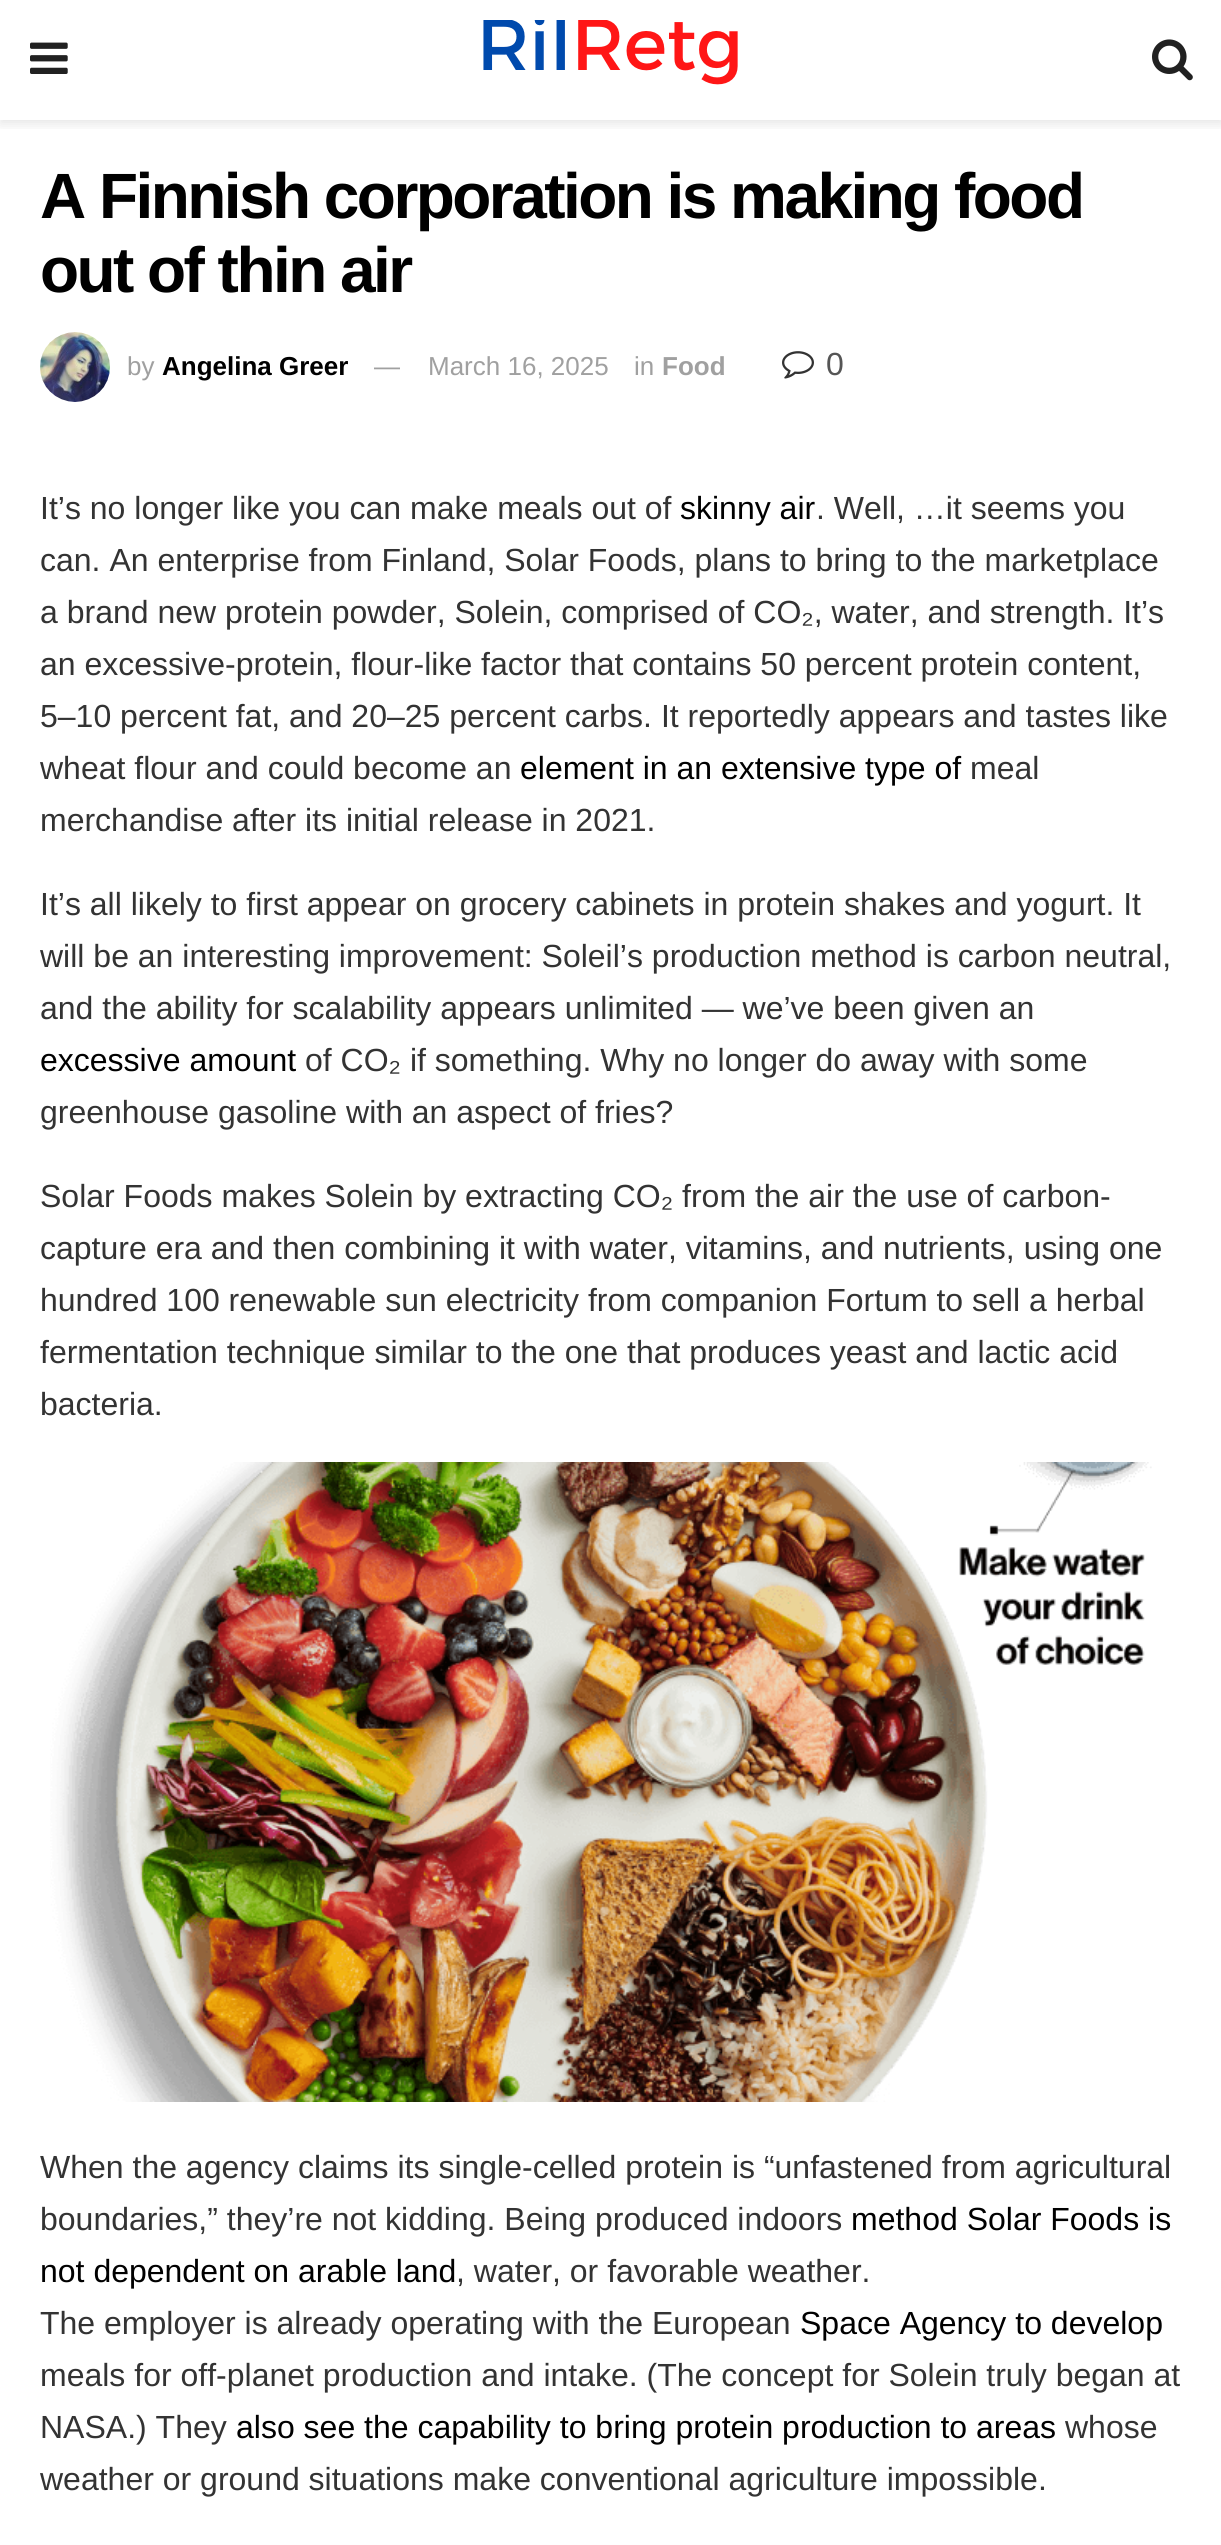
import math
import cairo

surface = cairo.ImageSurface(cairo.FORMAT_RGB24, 1221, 2545)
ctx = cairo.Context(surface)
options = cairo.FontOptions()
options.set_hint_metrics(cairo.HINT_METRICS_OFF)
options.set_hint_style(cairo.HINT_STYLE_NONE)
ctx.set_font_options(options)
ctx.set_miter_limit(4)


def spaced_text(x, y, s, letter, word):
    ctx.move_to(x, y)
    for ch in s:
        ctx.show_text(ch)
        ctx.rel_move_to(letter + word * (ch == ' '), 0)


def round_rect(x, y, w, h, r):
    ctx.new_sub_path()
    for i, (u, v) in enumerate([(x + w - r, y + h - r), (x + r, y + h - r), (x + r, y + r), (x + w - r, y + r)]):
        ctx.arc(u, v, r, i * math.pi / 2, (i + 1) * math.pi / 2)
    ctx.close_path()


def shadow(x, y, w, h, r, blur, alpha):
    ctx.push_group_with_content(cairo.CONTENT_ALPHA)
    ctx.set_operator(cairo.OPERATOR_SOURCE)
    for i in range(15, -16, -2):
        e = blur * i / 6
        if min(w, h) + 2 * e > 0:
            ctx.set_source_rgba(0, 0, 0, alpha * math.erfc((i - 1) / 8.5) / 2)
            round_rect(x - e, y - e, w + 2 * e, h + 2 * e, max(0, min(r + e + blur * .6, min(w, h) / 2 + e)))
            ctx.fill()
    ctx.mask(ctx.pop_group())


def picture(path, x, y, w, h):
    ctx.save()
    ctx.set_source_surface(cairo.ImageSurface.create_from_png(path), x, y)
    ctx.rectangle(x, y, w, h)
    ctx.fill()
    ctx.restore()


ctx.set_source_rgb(1, 1, 1)
ctx.paint()
ctx.save()
ctx.rectangle(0, 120, 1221, 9)
ctx.clip()
ctx.set_source_rgb(0, 0, 0)
shadow(0, 4, 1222, 120, 0, 6, 0.1)
ctx.restore()
picture("img1.png", 30, 42, 38, 32)
picture("img2.png", 483, 20, 255, 65)
picture("img3.png", 1152, 39, 41, 42)
ctx.select_font_face("Liberation Sans", cairo.FONT_SLANT_NORMAL, cairo.FONT_WEIGHT_BOLD)
ctx.set_font_size(64)
ctx.set_source_rgb(0, 0, 0)
spaced_text(40, 218, "A Finnish corporation is making food", -2.55, 0)
spaced_text(40, 292, "out of thin air", -2.55, 0)
picture("img4.png", 40, 332, 70, 70)
ctx.select_font_face("Liberation Sans")
ctx.set_font_size(26)
ctx.set_source_rgb(0.627, 0.627, 0.627)
ctx.move_to(127, 375)
ctx.show_text("by")
ctx.select_font_face("Liberation Sans", cairo.FONT_SLANT_NORMAL, cairo.FONT_WEIGHT_BOLD)
ctx.set_source_rgb(0, 0, 0)
ctx.move_to(162, 375)
ctx.show_text("Angelina Greer")
ctx.select_font_face("Liberation Sans")
ctx.set_source_rgb(0.627, 0.627, 0.627)
ctx.move_to(374, 375)
ctx.show_text("—")
ctx.move_to(428, 375)
ctx.show_text("March 16, 2025")
ctx.move_to(634, 375)
ctx.show_text("in")
ctx.select_font_face("Liberation Sans", cairo.FONT_SLANT_NORMAL, cairo.FONT_WEIGHT_BOLD)
ctx.move_to(662, 375)
ctx.show_text("Food")
picture("img5.png", 782, 351, 32, 28)
ctx.select_font_face("Liberation Sans")
ctx.set_font_size(32)
ctx.set_source_rgb(0.333, 0.333, 0.333)
ctx.move_to(826, 375)
ctx.show_text("0")
ctx.set_source_rgb(0.2, 0.2, 0.2)
ctx.move_to(40, 519)
ctx.show_text("It’s no longer like you can make meals out of")
ctx.set_source_rgb(0, 0, 0)
ctx.move_to(680, 519)
ctx.show_text("skinny air")
ctx.set_source_rgb(0.2, 0.2, 0.2)
ctx.move_to(816, 519)
ctx.show_text(". Well, …it seems you")
ctx.move_to(40, 571)
ctx.show_text("can. An enterprise from Finland, Solar Foods, plans to bring to the marketplace")
ctx.move_to(40, 623)
ctx.show_text("a brand new protein powder, Solein, comprised of CO₂, water, and strength. It’s")
ctx.move_to(40, 675)
ctx.show_text("an excessive-protein, flour-like factor that contains 50 percent protein content,")
ctx.move_to(40, 727)
ctx.show_text("5–10 percent fat, and 20–25 percent carbs. It reportedly appears and tastes like")
ctx.move_to(40, 779)
ctx.show_text("wheat flour and could become an")
ctx.set_source_rgb(0, 0, 0)
ctx.move_to(520, 779)
ctx.show_text("element in an extensive type of")
ctx.set_source_rgb(0.2, 0.2, 0.2)
ctx.move_to(970, 779)
ctx.show_text("meal")
ctx.move_to(40, 831)
ctx.show_text("merchandise after its initial release in 2021.")
ctx.move_to(40, 915)
ctx.show_text("It’s all likely to first appear on grocery cabinets in protein shakes and yogurt. It")
ctx.move_to(40, 967)
ctx.show_text("will be an interesting improvement: Soleil’s production method is carbon neutral,")
ctx.move_to(40, 1019)
ctx.show_text("and the ability for scalability appears unlimited — we’ve been given an")
ctx.set_source_rgb(0, 0, 0)
ctx.move_to(40, 1071)
ctx.show_text("excessive amount")
ctx.set_source_rgb(0.2, 0.2, 0.2)
ctx.move_to(305, 1071)
ctx.show_text("of CO₂ if something. Why no longer do away with some")
ctx.move_to(40, 1123)
ctx.show_text("greenhouse gasoline with an aspect of fries?")
ctx.move_to(40, 1207)
ctx.show_text("Solar Foods makes Solein by extracting CO₂ from the air the use of carbon-")
ctx.move_to(40, 1259)
ctx.show_text("capture era and then combining it with water, vitamins, and nutrients, using one")
ctx.move_to(40, 1311)
ctx.show_text("hundred 100 renewable sun electricity from companion Fortum to sell a herbal")
ctx.move_to(40, 1363)
ctx.show_text("fermentation technique similar to the one that produces yeast and lactic acid")
ctx.move_to(40, 1415)
ctx.show_text("bacteria.")
picture("img6.png", 50, 1462, 1102, 640)
ctx.move_to(40, 2178)
ctx.show_text("When the agency claims its single-celled protein is “unfastened from agricultural")
ctx.move_to(40, 2230)
ctx.show_text("boundaries,” they’re not kidding. Being produced indoors")
ctx.set_source_rgb(0, 0, 0)
ctx.move_to(851, 2230)
ctx.show_text("method Solar Foods is")
ctx.move_to(40, 2282)
ctx.show_text("not dependent on arable land")
ctx.set_source_rgb(0.2, 0.2, 0.2)
ctx.move_to(456, 2282)
ctx.show_text(", water, or favorable weather.")
ctx.move_to(40, 2334)
ctx.show_text("The employer is already operating with the European")
ctx.set_source_rgb(0, 0, 0)
ctx.move_to(800, 2334)
ctx.show_text("Space Agency to develop")
ctx.set_source_rgb(0.2, 0.2, 0.2)
ctx.move_to(40, 2386)
ctx.show_text("meals for off-planet production and intake. (The concept for Solein truly began at")
ctx.move_to(40, 2438)
ctx.show_text("NASA.) They")
ctx.set_source_rgb(0, 0, 0)
ctx.move_to(236, 2438)
ctx.show_text("also see the capability to bring protein production to areas")
ctx.set_source_rgb(0.2, 0.2, 0.2)
ctx.move_to(1065, 2438)
ctx.show_text("whose")
ctx.move_to(40, 2490)
ctx.show_text("weather or ground situations make conventional agriculture impossible.")
surface.write_to_png("page.png")
